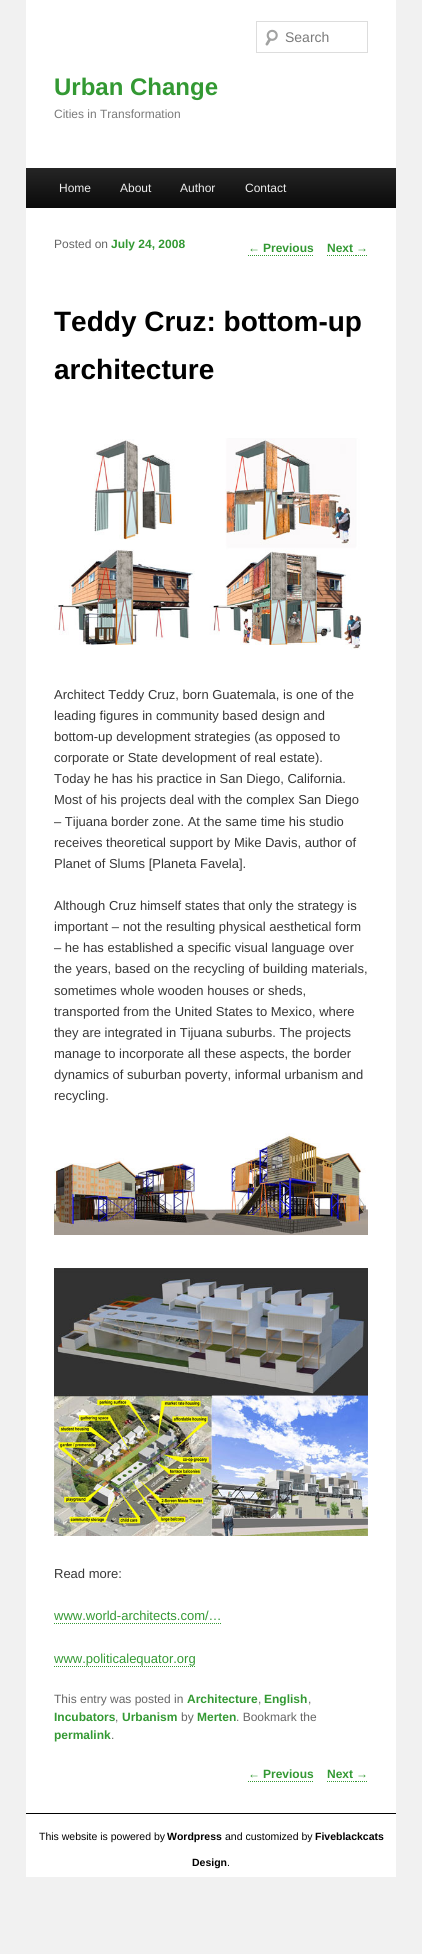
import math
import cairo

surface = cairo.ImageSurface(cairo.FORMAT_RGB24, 422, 1954)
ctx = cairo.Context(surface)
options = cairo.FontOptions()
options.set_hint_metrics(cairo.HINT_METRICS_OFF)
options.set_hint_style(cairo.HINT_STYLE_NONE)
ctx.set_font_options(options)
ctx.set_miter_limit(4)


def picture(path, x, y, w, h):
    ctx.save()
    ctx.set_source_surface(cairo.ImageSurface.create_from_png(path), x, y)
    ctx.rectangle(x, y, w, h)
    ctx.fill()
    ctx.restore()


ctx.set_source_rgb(0.945, 0.945, 0.945)
ctx.paint()
ctx.set_source_rgb(1, 1, 1)
ctx.rectangle(26, 0, 370, 1877)
ctx.fill()
picture("img1.png", 265, 29, 13, 17)
ctx.rectangle(256.5, 21.5, 111, 31)
ctx.set_source_rgb(0.867, 0.867, 0.867)
ctx.set_line_width(1)
ctx.stroke()
ctx.select_font_face("Liberation Sans")
ctx.set_font_size(14)
ctx.set_source_rgb(0.478, 0.478, 0.478)
ctx.move_to(285, 42)
ctx.show_text("Search")
ctx.select_font_face("Liberation Sans", cairo.FONT_SLANT_NORMAL, cairo.FONT_WEIGHT_BOLD)
ctx.set_font_size(24)
ctx.set_source_rgb(0.2, 0.6, 0.2)
ctx.move_to(54, 95)
ctx.show_text("Urban Change")
ctx.select_font_face("Liberation Sans")
ctx.set_font_size(12)
ctx.set_source_rgb(0.478, 0.478, 0.478)
ctx.move_to(54, 118)
ctx.show_text("Cities in Transformation")
gradient = cairo.LinearGradient(211, 168, 211, 208)
gradient.add_color_stop_rgba(0, 0.145, 0.145, 0.145, 1)
gradient.add_color_stop_rgba(1, 0.039, 0.039, 0.039, 1)
ctx.set_source(gradient)
ctx.rectangle(26, 168, 370, 40)
ctx.fill()
ctx.set_source_rgb(0.933, 0.933, 0.933)
ctx.move_to(59, 192)
ctx.show_text("Home")
ctx.move_to(120, 192)
ctx.show_text("About")
ctx.move_to(180, 192)
ctx.show_text("Author")
ctx.move_to(245, 192)
ctx.show_text("Contact")
ctx.set_source_rgb(0.4, 0.4, 0.4)
ctx.move_to(54, 248)
ctx.show_text("Posted on")
ctx.select_font_face("Liberation Sans", cairo.FONT_SLANT_NORMAL, cairo.FONT_WEIGHT_BOLD)
ctx.set_source_rgb(0.2, 0.6, 0.2)
ctx.move_to(111, 248)
ctx.show_text("July 24, 2008")
ctx.set_font_size(28)
ctx.set_source_rgb(0, 0, 0)
ctx.move_to(54, 331)
ctx.show_text("Teddy Cruz: bottom-up")
ctx.move_to(54, 379)
ctx.show_text("architecture")
picture("img2.png", 54, 438, 308, 212)
ctx.select_font_face("Liberation Sans")
ctx.set_font_size(13)
ctx.set_source_rgb(0.216, 0.216, 0.216)
ctx.move_to(54, 699)
ctx.show_text("Architect Teddy Cruz, born Guatemala, is one of the")
ctx.move_to(54, 720)
ctx.show_text("leading figures in community based design and")
ctx.move_to(54, 741)
ctx.show_text("bottom-up development strategies (as opposed to")
ctx.move_to(54, 762)
ctx.show_text("corporate or State development of real estate).")
ctx.move_to(54, 783)
ctx.show_text("Today he has his practice in San Diego, California.")
ctx.move_to(54, 804)
ctx.show_text("Most of his projects deal with the complex San Diego")
ctx.move_to(54, 826)
ctx.show_text("– Tijuana border zone. At the same time his studio")
ctx.move_to(54, 847)
ctx.show_text("receives theoretical support by Mike Davis, author of")
ctx.move_to(54, 868)
ctx.show_text("Planet of Slums [Planeta Favela].")
ctx.move_to(54, 910)
ctx.show_text("Although Cruz himself states that only the strategy is")
ctx.move_to(54, 931)
ctx.show_text("important – not the resulting physical aesthetical form")
ctx.move_to(54, 952)
ctx.show_text("– he has established a specific visual language over")
ctx.move_to(54, 973)
ctx.show_text("the years, based on the recycling of building materials,")
ctx.move_to(54, 995)
ctx.show_text("sometimes whole wooden houses or sheds,")
ctx.move_to(54, 1016)
ctx.show_text("transported from the United States to Mexico, where")
ctx.move_to(54, 1037)
ctx.show_text("they are integrated in Tijuana suburbs. The projects")
ctx.move_to(54, 1058)
ctx.show_text("manage to incorporate all these aspects, the border")
ctx.move_to(54, 1079)
ctx.show_text("dynamics of suburban poverty, informal urbanism and")
ctx.move_to(54, 1100)
ctx.show_text("recycling.")
picture("img3.png", 54, 1133, 314, 102)
picture("img4.png", 54, 1268, 314, 268)
ctx.move_to(54, 1578)
ctx.show_text("Read more:")
ctx.set_source_rgb(0.2, 0.6, 0.2)
ctx.move_to(54, 1620)
ctx.show_text("www.world-architects.com/…")
ctx.new_path()
ctx.move_to(54, 1623.5)
ctx.line_to(222, 1623.5)
ctx.set_dash([1, 1])
ctx.stroke()
ctx.move_to(54, 1663)
ctx.show_text("www.politicalequator.org")
ctx.new_path()
ctx.move_to(54, 1666.5)
ctx.line_to(196, 1666.5)
ctx.stroke()
ctx.set_font_size(12)
ctx.set_source_rgb(0.4, 0.4, 0.4)
ctx.move_to(54, 1703)
ctx.show_text("This entry was posted in")
ctx.select_font_face("Liberation Sans", cairo.FONT_SLANT_NORMAL, cairo.FONT_WEIGHT_BOLD)
ctx.set_source_rgb(0.2, 0.6, 0.2)
ctx.move_to(187, 1703)
ctx.show_text("Architecture")
ctx.select_font_face("Liberation Sans")
ctx.set_source_rgb(0.4, 0.4, 0.4)
ctx.move_to(258, 1703)
ctx.show_text(",")
ctx.select_font_face("Liberation Sans", cairo.FONT_SLANT_NORMAL, cairo.FONT_WEIGHT_BOLD)
ctx.set_source_rgb(0.2, 0.6, 0.2)
ctx.move_to(264, 1703)
ctx.show_text("English")
ctx.select_font_face("Liberation Sans")
ctx.set_source_rgb(0.4, 0.4, 0.4)
ctx.move_to(308, 1703)
ctx.show_text(",")
ctx.select_font_face("Liberation Sans", cairo.FONT_SLANT_NORMAL, cairo.FONT_WEIGHT_BOLD)
ctx.set_source_rgb(0.2, 0.6, 0.2)
ctx.move_to(54, 1721)
ctx.show_text("Incubators")
ctx.select_font_face("Liberation Sans")
ctx.set_source_rgb(0.4, 0.4, 0.4)
ctx.move_to(115, 1721)
ctx.show_text(",")
ctx.select_font_face("Liberation Sans", cairo.FONT_SLANT_NORMAL, cairo.FONT_WEIGHT_BOLD)
ctx.set_source_rgb(0.2, 0.6, 0.2)
ctx.move_to(122, 1721)
ctx.show_text("Urbanism")
ctx.select_font_face("Liberation Sans")
ctx.set_source_rgb(0.4, 0.4, 0.4)
ctx.move_to(181, 1721)
ctx.show_text("by")
ctx.select_font_face("Liberation Sans", cairo.FONT_SLANT_NORMAL, cairo.FONT_WEIGHT_BOLD)
ctx.set_source_rgb(0.2, 0.6, 0.2)
ctx.move_to(197, 1721)
ctx.show_text("Merten")
ctx.select_font_face("Liberation Sans")
ctx.set_source_rgb(0.4, 0.4, 0.4)
ctx.move_to(236, 1721)
ctx.show_text(". Bookmark the")
ctx.select_font_face("Liberation Sans", cairo.FONT_SLANT_NORMAL, cairo.FONT_WEIGHT_BOLD)
ctx.set_source_rgb(0.2, 0.6, 0.2)
ctx.move_to(54, 1739)
ctx.show_text("permalink")
ctx.select_font_face("Liberation Sans")
ctx.set_source_rgb(0.4, 0.4, 0.4)
ctx.move_to(111, 1739)
ctx.show_text(".")
ctx.set_source_rgb(0.2, 0.6, 0.2)
ctx.move_to(248, 252)
ctx.show_text("←")
ctx.new_path()
ctx.move_to(248, 255.5)
ctx.line_to(260, 255.5)
ctx.stroke()
ctx.new_path()
ctx.move_to(260, 255.5)
ctx.line_to(314, 255.5)
ctx.stroke()
ctx.select_font_face("Liberation Sans", cairo.FONT_SLANT_NORMAL, cairo.FONT_WEIGHT_BOLD)
ctx.move_to(263, 252)
ctx.show_text("Previous")
ctx.move_to(327, 252)
ctx.show_text("Next")
ctx.select_font_face("Liberation Sans")
ctx.move_to(356, 252)
ctx.show_text("→")
ctx.new_path()
ctx.move_to(327, 255.5)
ctx.line_to(356, 255.5)
ctx.move_to(356, 255.5)
ctx.line_to(368, 255.5)
ctx.stroke()
ctx.move_to(248, 1778)
ctx.show_text("←")
ctx.new_path()
ctx.move_to(248, 1781.5)
ctx.line_to(260, 1781.5)
ctx.stroke()
ctx.new_path()
ctx.move_to(260, 1781.5)
ctx.line_to(314, 1781.5)
ctx.stroke()
ctx.select_font_face("Liberation Sans", cairo.FONT_SLANT_NORMAL, cairo.FONT_WEIGHT_BOLD)
ctx.move_to(263, 1778)
ctx.show_text("Previous")
ctx.move_to(327, 1778)
ctx.show_text("Next")
ctx.select_font_face("Liberation Sans")
ctx.move_to(356, 1778)
ctx.show_text("→")
ctx.new_path()
ctx.move_to(327, 1781.5)
ctx.line_to(356, 1781.5)
ctx.move_to(356, 1781.5)
ctx.line_to(368, 1781.5)
ctx.stroke()
ctx.set_source_rgb(0, 0, 0)
ctx.rectangle(26, 1813, 370, 1)
ctx.fill()
ctx.set_font_size(10.5)
ctx.move_to(39, 1840)
ctx.show_text("This website is powered by")
ctx.select_font_face("Liberation Sans", cairo.FONT_SLANT_NORMAL, cairo.FONT_WEIGHT_BOLD)
ctx.move_to(167, 1840)
ctx.show_text("Wordpress")
ctx.select_font_face("Liberation Sans")
ctx.move_to(225, 1840)
ctx.show_text("and customized by")
ctx.select_font_face("Liberation Sans", cairo.FONT_SLANT_NORMAL, cairo.FONT_WEIGHT_BOLD)
ctx.move_to(315, 1840)
ctx.show_text("Fiveblackcats")
ctx.move_to(192, 1866)
ctx.show_text("Design")
ctx.select_font_face("Liberation Sans")
ctx.move_to(227, 1866)
ctx.show_text(".")
surface.write_to_png("page.png")
